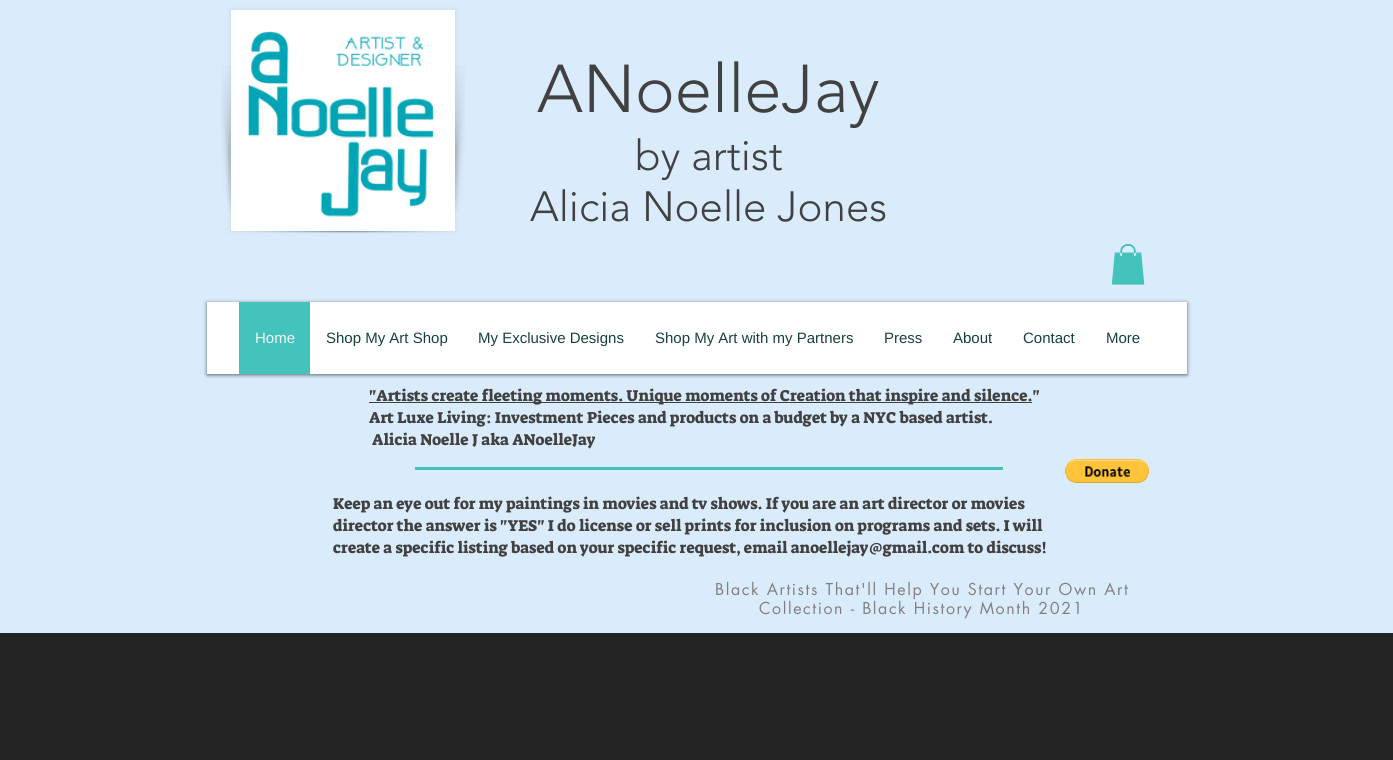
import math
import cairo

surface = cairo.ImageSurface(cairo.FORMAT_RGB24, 1393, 760)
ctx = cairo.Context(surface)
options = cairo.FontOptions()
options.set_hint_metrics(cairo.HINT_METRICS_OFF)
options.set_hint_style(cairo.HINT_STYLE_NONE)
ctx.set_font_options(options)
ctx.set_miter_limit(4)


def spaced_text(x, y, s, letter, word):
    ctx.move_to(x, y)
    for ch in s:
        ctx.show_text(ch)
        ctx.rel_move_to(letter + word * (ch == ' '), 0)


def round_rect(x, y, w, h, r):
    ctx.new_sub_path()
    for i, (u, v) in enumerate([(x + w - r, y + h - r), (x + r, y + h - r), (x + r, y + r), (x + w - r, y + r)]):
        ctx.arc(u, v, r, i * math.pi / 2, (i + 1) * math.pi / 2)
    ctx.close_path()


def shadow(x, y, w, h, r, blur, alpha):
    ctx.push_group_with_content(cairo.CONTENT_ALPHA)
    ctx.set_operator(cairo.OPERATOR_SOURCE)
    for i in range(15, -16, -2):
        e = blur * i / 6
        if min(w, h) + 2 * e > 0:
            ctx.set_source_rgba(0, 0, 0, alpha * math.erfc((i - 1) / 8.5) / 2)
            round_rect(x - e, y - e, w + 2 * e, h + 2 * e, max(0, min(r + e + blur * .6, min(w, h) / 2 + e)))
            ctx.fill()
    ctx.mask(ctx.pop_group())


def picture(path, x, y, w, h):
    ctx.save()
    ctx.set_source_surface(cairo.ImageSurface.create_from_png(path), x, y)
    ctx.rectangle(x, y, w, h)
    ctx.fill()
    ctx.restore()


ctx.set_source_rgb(0.855, 0.925, 0.984)
ctx.paint()
ctx.set_source_rgb(0, 0, 0)
shadow(231, 10, 224, 221, 0, 2.5, 0.1)
ctx.set_source_rgb(1, 1, 1)
ctx.rectangle(231, 10, 224, 221)
ctx.fill()
picture("img1.png", 247, 31, 187, 186)
picture("img2.png", 249, 231, 188, 2)
picture("img3.png", 221, 65, 10, 147)
picture("img4.png", 455, 65, 10, 147)
ctx.select_font_face("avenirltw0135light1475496 Light")
ctx.set_font_size(67)
ctx.set_source_rgb(0.255, 0.255, 0.255)
ctx.move_to(537, 112)
ctx.show_text("ANoelleJay")
ctx.set_font_size(42)
ctx.move_to(635, 170)
ctx.show_text("by artist")
ctx.move_to(530, 221)
ctx.show_text("Alicia Noelle Jones")
ctx.set_source_rgb(0, 0, 0)
shadow(207, 303, 980, 72, 0, 2, 0.6)
ctx.set_source_rgb(1, 1, 1)
ctx.rectangle(207, 302, 980, 72)
ctx.fill()
ctx.set_source_rgb(0.267, 0.761, 0.737)
ctx.rectangle(239, 302, 71, 72)
ctx.fill()
ctx.select_font_face("Liberation Sans")
ctx.set_font_size(15)
ctx.set_source_rgb(0.957, 0.953, 0.949)
ctx.move_to(255, 343)
ctx.show_text("Home")
ctx.set_source_rgb(0.09, 0.255, 0.247)
ctx.move_to(326, 343)
ctx.show_text("Shop My Art Shop")
ctx.move_to(478, 343)
ctx.show_text("My Exclusive Designs")
ctx.move_to(655, 343)
ctx.show_text("Shop My Art with my Partners")
ctx.move_to(884, 343)
ctx.show_text("Press")
ctx.move_to(953, 343)
ctx.show_text("About")
ctx.move_to(1023, 343)
ctx.show_text("Contact")
ctx.move_to(1106, 343)
ctx.show_text("More")
picture("img5.png", 1111, 244, 34, 41)
ctx.set_source_rgb(0.255, 0.255, 0.255)
ctx.rectangle(369, 402, 663, 1)
ctx.fill()
ctx.select_font_face("Suez One")
ctx.set_font_size(16)
ctx.move_to(369, 401)
ctx.show_text("\"Artists create fleeting moments. Unique moments of Creation that inspire and silence.\"")
ctx.move_to(369, 423)
ctx.show_text("Art Luxe Living: Investment Pieces and products on a budget by a NYC based artist.")
ctx.move_to(372, 445)
ctx.show_text("Alicia Noelle J aka ANoelleJay")
ctx.set_source_rgb(0.267, 0.761, 0.737)
ctx.rectangle(415, 467, 588, 3)
ctx.fill()
picture("img6.png", 1065, 459, 84, 24)
ctx.set_source_rgb(0.255, 0.255, 0.255)
ctx.move_to(333, 509)
ctx.show_text("Keep an eye out for my paintings in movies and tv shows. If you are an art director or movies")
ctx.move_to(333, 531)
ctx.show_text("director the answer is \"YES\" I do license or sell prints for inclusion on programs and sets. I will")
ctx.move_to(333, 553)
ctx.show_text("create a specific listing based on your specific request, email anoellejay@gmail.com to discuss!")
ctx.select_font_face("futura")
ctx.set_source_rgb(0.502, 0.502, 0.502)
spaced_text(715, 595, "Black Artists That'll Help You Start Your Own Art", 1.6, 0)
spaced_text(759, 614, "Collection - Black History Month 2021", 1.6, 0)
ctx.set_source_rgb(0.141, 0.137, 0.137)
ctx.rectangle(0, 633, 1393, 127)
ctx.fill()
surface.write_to_png("page.png")
